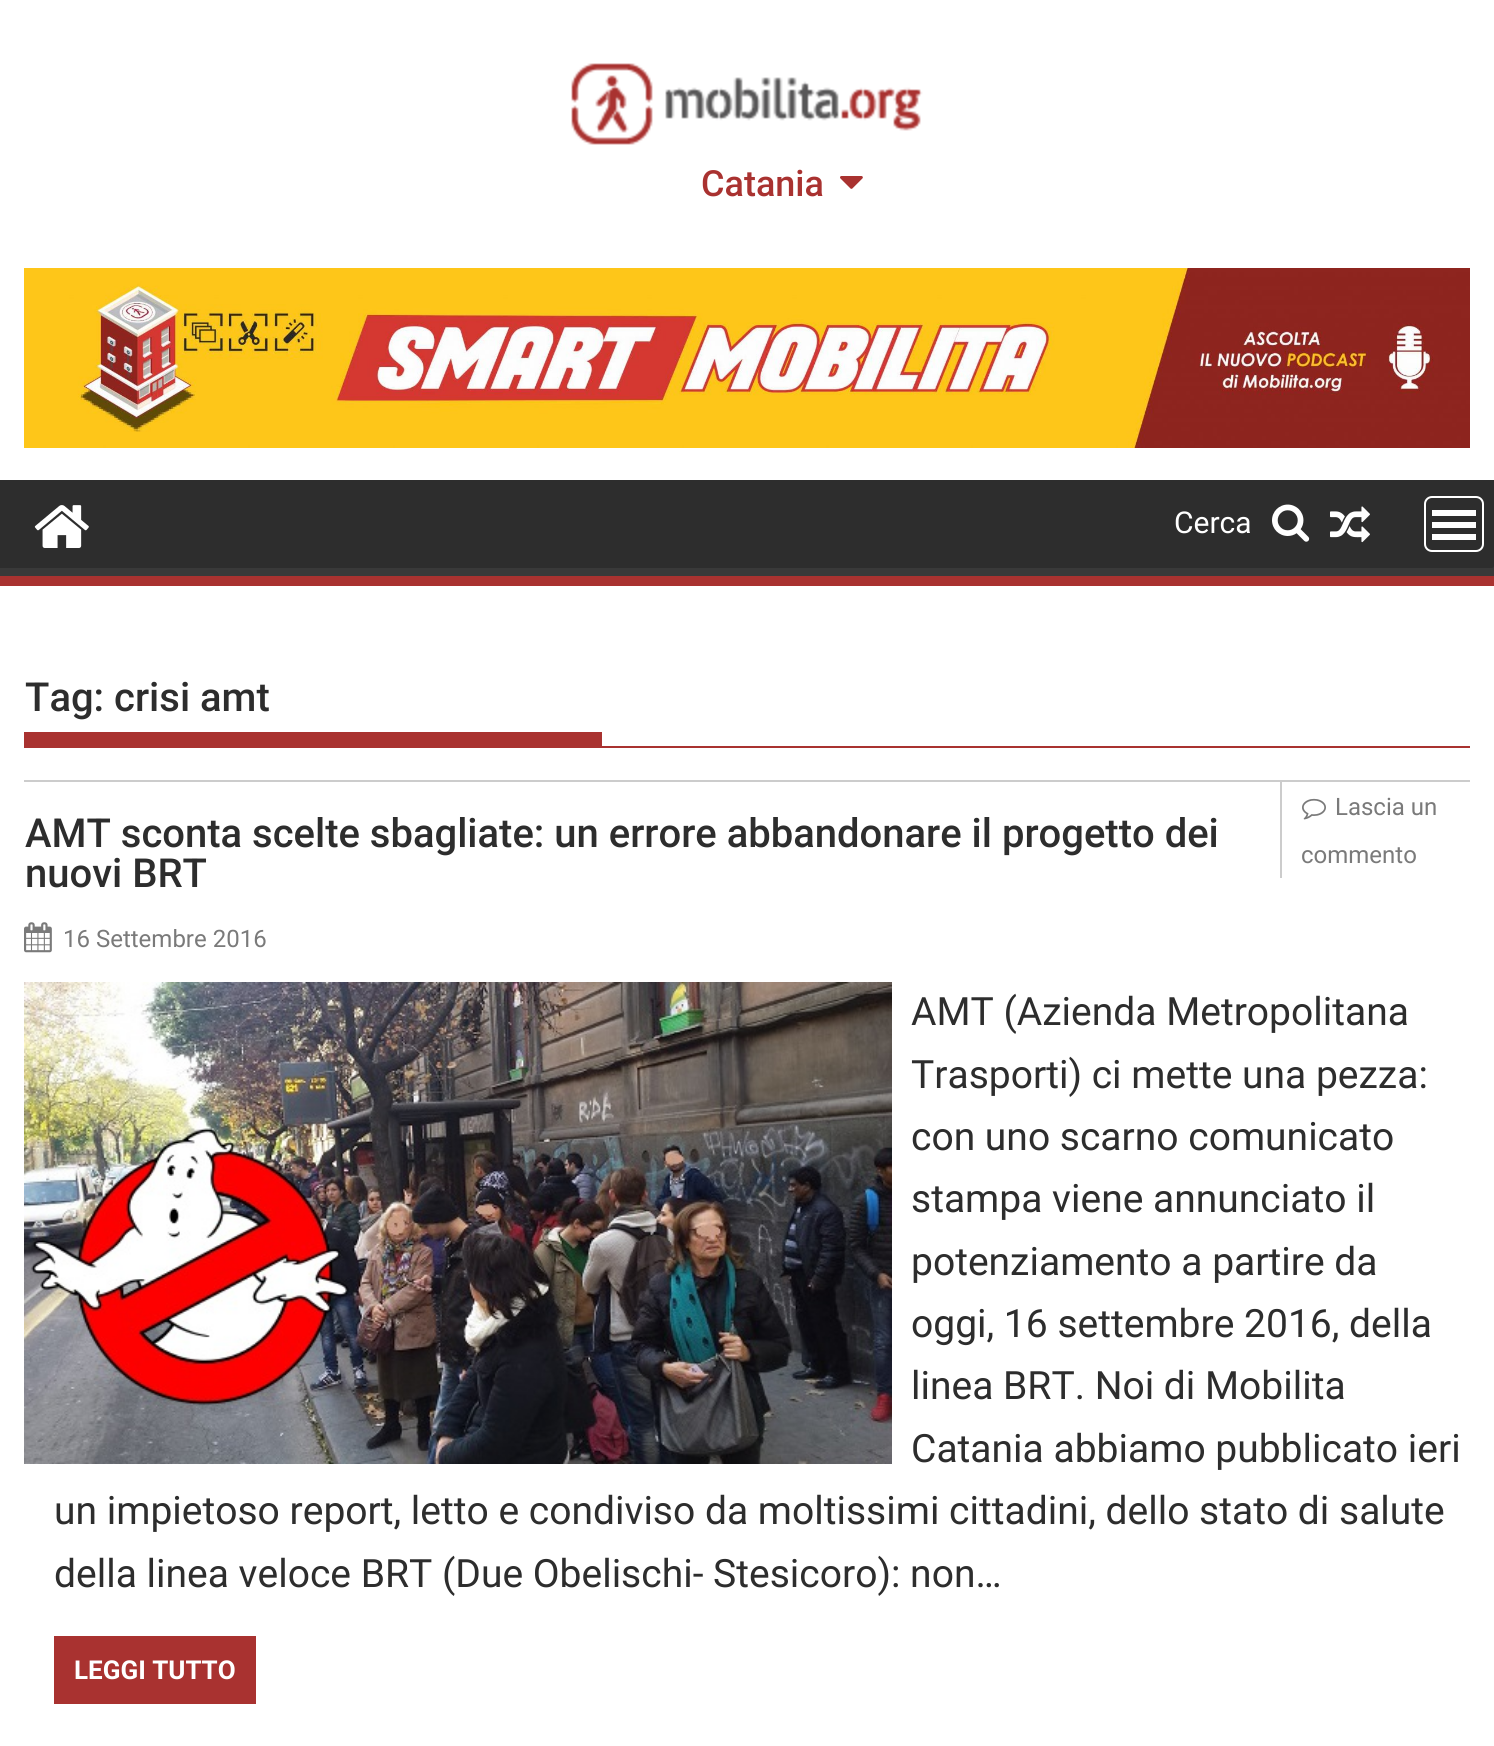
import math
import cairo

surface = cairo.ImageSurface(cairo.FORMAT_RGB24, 1494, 1746)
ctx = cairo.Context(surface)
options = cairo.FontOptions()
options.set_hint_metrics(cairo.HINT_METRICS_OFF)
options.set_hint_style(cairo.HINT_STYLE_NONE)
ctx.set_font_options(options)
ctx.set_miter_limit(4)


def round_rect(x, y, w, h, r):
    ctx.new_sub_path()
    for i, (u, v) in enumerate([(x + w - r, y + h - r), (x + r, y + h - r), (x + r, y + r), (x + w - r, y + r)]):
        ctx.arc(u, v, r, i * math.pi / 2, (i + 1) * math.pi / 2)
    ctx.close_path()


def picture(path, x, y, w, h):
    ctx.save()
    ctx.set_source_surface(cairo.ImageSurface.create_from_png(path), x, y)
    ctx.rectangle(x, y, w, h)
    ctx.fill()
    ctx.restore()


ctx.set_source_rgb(1, 1, 1)
ctx.paint()
picture("img1.png", 571, 63, 352, 82)
ctx.select_font_face("Roboto Medium")
ctx.set_font_size(36)
ctx.set_source_rgb(0.663, 0.196, 0.188)
ctx.move_to(701, 196)
ctx.show_text("Catania")
picture("img2.png", 840, 176, 23, 13)
picture("img3.png", 24, 268, 1446, 180)
ctx.set_source_rgb(0.176, 0.176, 0.176)
ctx.rectangle(0, 480, 1494, 88)
ctx.fill()
ctx.save()
ctx.rectangle(0, 480, 1494, 96)
ctx.clip()
ctx.set_source_rgb(0.224, 0.224, 0.224)
ctx.set_fill_rule(cairo.FILL_RULE_EVEN_ODD)
ctx.new_path()
ctx.move_to(-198, 282)
ctx.line_to(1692, 282)
ctx.line_to(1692, 774)
ctx.line_to(-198, 774)
ctx.close_path()
ctx.move_to(-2, 468)
ctx.line_to(1492, 468)
ctx.curve_to(1493, 468, 1494, 469, 1494, 470)
ctx.line_to(1494, 566)
ctx.curve_to(1494, 567, 1493, 568, 1492, 568)
ctx.line_to(-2, 568)
ctx.curve_to(-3, 568, -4, 567, -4, 566)
ctx.line_to(-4, 470)
ctx.curve_to(-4, 469, -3, 468, -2, 468)
ctx.close_path()
ctx.fill()
ctx.restore()
ctx.set_source_rgb(0.663, 0.196, 0.188)
ctx.rectangle(0, 576, 1494, 10)
ctx.fill()
picture("img4.png", 34, 505, 55, 43)
ctx.select_font_face("Roboto")
ctx.set_font_size(30)
ctx.set_source_rgb(1, 1, 1)
ctx.move_to(1174, 533)
ctx.show_text("Cerca")
picture("img5.png", 1272, 504, 38, 38)
picture("img6.png", 1330, 506, 40, 37)
round_rect(1425, 497, 58, 54, 7)
ctx.stroke()
ctx.rectangle(1432, 534, 44, 6)
ctx.fill()
ctx.rectangle(1432, 522, 44, 6)
ctx.fill()
ctx.rectangle(1432, 510, 44, 6)
ctx.fill()
ctx.set_source_rgb(0.663, 0.196, 0.188)
ctx.rectangle(24, 746, 1446, 2)
ctx.fill()
ctx.select_font_face("Roboto Medium")
ctx.set_font_size(40)
ctx.set_source_rgb(0.176, 0.176, 0.176)
ctx.move_to(25, 711)
ctx.show_text("Tag: crisi amt")
ctx.set_source_rgb(0.663, 0.196, 0.188)
ctx.rectangle(24, 732, 578, 14)
ctx.fill()
ctx.set_source_rgb(0.8, 0.8, 0.8)
ctx.rectangle(24, 780, 1446, 2)
ctx.fill()
ctx.set_source_rgb(0.176, 0.176, 0.176)
ctx.move_to(25, 847)
ctx.show_text("AMT sconta scelte sbagliate: un errore abbandonare il progetto dei")
ctx.move_to(25, 887)
ctx.show_text("nuovi BRT")
picture("img7.png", 24, 922, 28, 31)
ctx.select_font_face("Roboto")
ctx.set_font_size(24)
ctx.set_source_rgb(0.478, 0.478, 0.478)
ctx.move_to(63, 947)
ctx.show_text("16 Settembre 2016")
ctx.set_source_rgb(0.8, 0.8, 0.8)
ctx.rectangle(1280, 782, 2, 96)
ctx.fill()
picture("img8.png", 1302, 798, 24, 22)
ctx.set_source_rgb(0.478, 0.478, 0.478)
ctx.move_to(1335, 815)
ctx.show_text("Lascia un")
ctx.move_to(1301, 863)
ctx.show_text("commento")
picture("img9.png", 24, 982, 868, 482)
ctx.set_font_size(39)
ctx.set_source_rgb(0.176, 0.176, 0.176)
ctx.move_to(911, 1025)
ctx.show_text("AMT (Azienda Metropolitana")
ctx.move_to(911, 1088)
ctx.show_text("Trasporti) ci mette una pezza:")
ctx.move_to(911, 1150)
ctx.show_text("con uno scarno comunicato")
ctx.move_to(911, 1212)
ctx.show_text("stampa viene annunciato il")
ctx.move_to(911, 1275)
ctx.show_text("potenziamento a partire da")
ctx.move_to(911, 1337)
ctx.show_text("oggi, 16 settembre 2016, della")
ctx.move_to(911, 1399)
ctx.show_text("linea BRT. Noi di Mobilita")
ctx.move_to(911, 1462)
ctx.show_text("Catania abbiamo pubblicato ieri")
ctx.move_to(54, 1524)
ctx.show_text("un impietoso report, letto e condiviso da moltissimi cittadini, dello stato di salute")
ctx.move_to(54, 1587)
ctx.show_text("della linea veloce BRT (Due Obelischi- Stesicoro): non…")
ctx.set_source_rgb(0.663, 0.196, 0.188)
ctx.rectangle(54, 1636, 202, 68)
ctx.fill()
ctx.select_font_face("Roboto", cairo.FONT_SLANT_NORMAL, cairo.FONT_WEIGHT_BOLD)
ctx.set_font_size(26)
ctx.set_source_rgb(1, 1, 1)
ctx.move_to(74, 1679)
ctx.show_text("LEGGI TUTTO")
surface.write_to_png("page.png")
